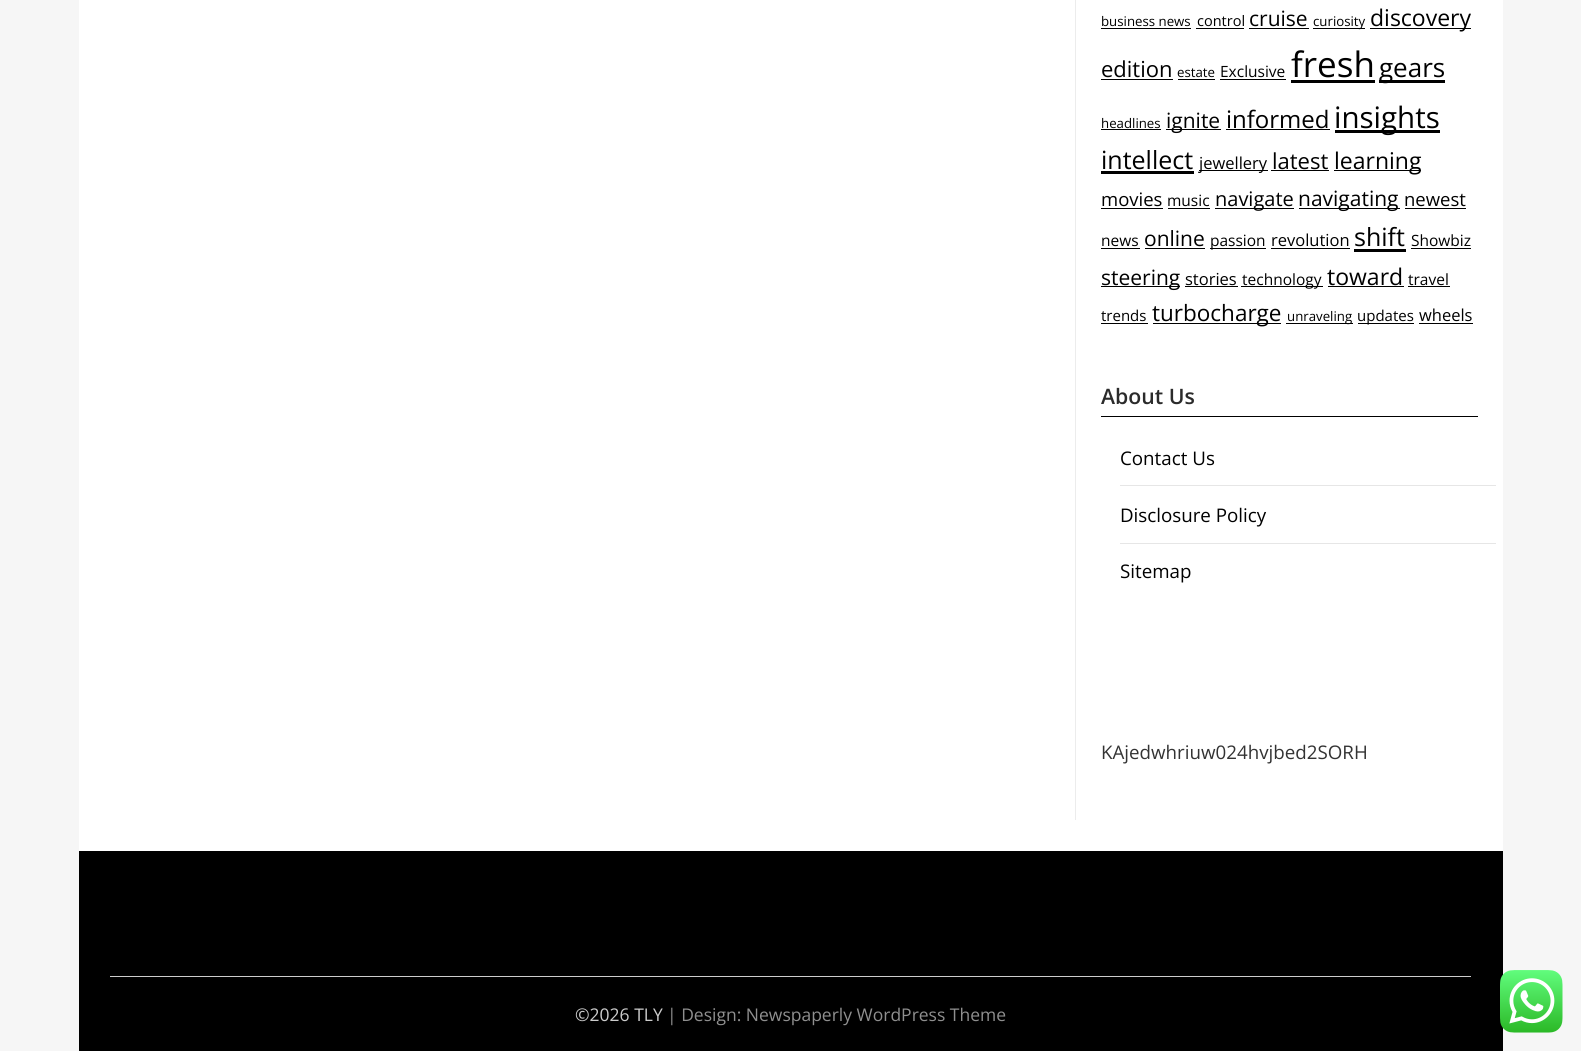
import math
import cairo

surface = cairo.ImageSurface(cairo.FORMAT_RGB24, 1581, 1051)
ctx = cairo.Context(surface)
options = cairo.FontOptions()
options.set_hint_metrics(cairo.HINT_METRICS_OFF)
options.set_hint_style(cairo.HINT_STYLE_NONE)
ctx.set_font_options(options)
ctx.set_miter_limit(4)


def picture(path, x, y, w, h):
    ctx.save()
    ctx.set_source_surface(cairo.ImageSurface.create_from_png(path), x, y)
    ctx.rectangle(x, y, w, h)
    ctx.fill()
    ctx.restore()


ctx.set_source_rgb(0.961, 0.961, 0.961)
ctx.paint()
ctx.set_source_rgb(1, 1, 1)
ctx.rectangle(79, 0, 1424, 851)
ctx.fill()
ctx.set_source_rgb(0.925, 0.925, 0.925)
ctx.rectangle(1075, 0, 1, 820)
ctx.fill()
ctx.select_font_face("Open Sans")
ctx.set_font_size(13.25)
ctx.set_source_rgb(0, 0, 0)
ctx.move_to(1101, 26)
ctx.show_text("business news")
ctx.rectangle(1101, 28, 90, 1)
ctx.fill()
ctx.set_font_size(14.5)
ctx.move_to(1197, 26)
ctx.show_text("control")
ctx.rectangle(1196, 28, 48, 1)
ctx.fill()
ctx.set_font_size(21)
ctx.move_to(1249, 26)
ctx.show_text("cruise")
ctx.rectangle(1249, 28, 60, 1)
ctx.fill()
ctx.rectangle(1313, 28, 52, 1)
ctx.fill()
ctx.set_font_size(13.25)
ctx.move_to(1313, 26)
ctx.show_text("curiosity")
ctx.rectangle(1370, 28, 101, 1)
ctx.fill()
ctx.set_font_size(23)
ctx.move_to(1370, 26)
ctx.show_text("discovery")
ctx.set_font_size(22)
ctx.move_to(1101, 77)
ctx.show_text("edition")
ctx.rectangle(1101, 79, 72, 1)
ctx.fill()
ctx.set_font_size(13.25)
ctx.move_to(1177, 77)
ctx.show_text("estate")
ctx.rectangle(1178, 79, 37, 1)
ctx.fill()
ctx.set_font_size(15.5)
ctx.move_to(1220, 77)
ctx.show_text("Exclusive")
ctx.rectangle(1220, 79, 66, 1)
ctx.fill()
ctx.set_font_size(35)
ctx.move_to(1291, 77)
ctx.show_text("fresh")
ctx.rectangle(1291, 80, 84, 3)
ctx.fill()
ctx.rectangle(1379, 80, 66, 3)
ctx.fill()
ctx.set_font_size(26)
ctx.move_to(1379, 77)
ctx.show_text("gears")
ctx.set_font_size(13.25)
ctx.move_to(1101, 128)
ctx.show_text("headlines")
ctx.rectangle(1101, 129, 60, 1)
ctx.fill()
ctx.rectangle(1166, 129, 55, 1)
ctx.fill()
ctx.set_font_size(21)
ctx.move_to(1166, 128)
ctx.show_text("ignite")
ctx.set_font_size(24)
ctx.move_to(1226, 128)
ctx.show_text("informed")
ctx.rectangle(1226, 129, 104, 1)
ctx.fill()
ctx.rectangle(1335, 130, 105, 3)
ctx.fill()
ctx.set_font_size(29.5)
ctx.move_to(1334, 128)
ctx.show_text("insights")
ctx.set_font_size(25)
ctx.move_to(1101, 169)
ctx.show_text("intellect")
ctx.rectangle(1101, 171, 93, 3)
ctx.fill()
ctx.rectangle(1199, 170, 69, 1)
ctx.fill()
ctx.set_font_size(16.5)
ctx.move_to(1199, 169)
ctx.show_text("jewellery")
ctx.set_font_size(22)
ctx.move_to(1272, 169)
ctx.show_text("latest")
ctx.rectangle(1271, 170, 58, 1)
ctx.fill()
ctx.rectangle(1334, 170, 87, 1)
ctx.fill()
ctx.set_font_size(23)
ctx.move_to(1334, 169)
ctx.show_text("learning")
ctx.set_font_size(18.5)
ctx.move_to(1101, 206)
ctx.show_text("movies")
ctx.rectangle(1101, 208, 62, 1)
ctx.fill()
ctx.set_font_size(15.5)
ctx.move_to(1167, 206)
ctx.show_text("music")
ctx.rectangle(1168, 208, 42, 1)
ctx.fill()
ctx.rectangle(1215, 208, 79, 1)
ctx.fill()
ctx.set_font_size(20)
ctx.move_to(1215, 206)
ctx.show_text("navigate")
ctx.rectangle(1299, 208, 101, 1)
ctx.fill()
ctx.set_font_size(21)
ctx.move_to(1298, 206)
ctx.show_text("navigating")
ctx.set_font_size(18.5)
ctx.move_to(1404, 206)
ctx.show_text("newest")
ctx.rectangle(1405, 208, 61, 1)
ctx.fill()
ctx.set_font_size(15.5)
ctx.move_to(1101, 246)
ctx.show_text("news")
ctx.rectangle(1101, 248, 39, 1)
ctx.fill()
ctx.set_font_size(21)
ctx.move_to(1144, 246)
ctx.show_text("online")
ctx.rectangle(1145, 248, 60, 1)
ctx.fill()
ctx.rectangle(1210, 248, 56, 1)
ctx.fill()
ctx.set_font_size(15.5)
ctx.move_to(1210, 246)
ctx.show_text("passion")
ctx.set_font_size(16.5)
ctx.move_to(1271, 246)
ctx.show_text("revolution")
ctx.rectangle(1271, 248, 79, 1)
ctx.fill()
ctx.set_font_size(25)
ctx.move_to(1354, 246)
ctx.show_text("shift")
ctx.rectangle(1354, 249, 52, 3)
ctx.fill()
ctx.set_font_size(15.5)
ctx.move_to(1411, 246)
ctx.show_text("Showbiz")
ctx.rectangle(1411, 248, 60, 1)
ctx.fill()
ctx.rectangle(1101, 286, 79, 1)
ctx.fill()
ctx.set_font_size(21)
ctx.move_to(1101, 285)
ctx.show_text("steering")
ctx.set_font_size(16.5)
ctx.move_to(1185, 285)
ctx.show_text("stories")
ctx.rectangle(1185, 286, 53, 1)
ctx.fill()
ctx.rectangle(1241, 286, 82, 1)
ctx.fill()
ctx.set_font_size(15.5)
ctx.move_to(1242, 285)
ctx.show_text("technology")
ctx.set_font_size(23)
ctx.move_to(1327, 285)
ctx.show_text("toward")
ctx.rectangle(1328, 286, 76, 1)
ctx.fill()
ctx.set_font_size(15.5)
ctx.move_to(1408, 285)
ctx.show_text("travel")
ctx.rectangle(1408, 286, 42, 1)
ctx.fill()
ctx.set_font_size(15)
ctx.move_to(1101, 321)
ctx.show_text("trends")
ctx.rectangle(1101, 323, 47, 1)
ctx.fill()
ctx.rectangle(1153, 323, 128, 1)
ctx.fill()
ctx.set_font_size(22.5)
ctx.move_to(1152, 321)
ctx.show_text("turbocharge")
ctx.rectangle(1286, 323, 67, 1)
ctx.fill()
ctx.set_font_size(13.25)
ctx.move_to(1287, 321)
ctx.show_text("unraveling")
ctx.rectangle(1358, 323, 56, 1)
ctx.fill()
ctx.set_font_size(15)
ctx.move_to(1357, 321)
ctx.show_text("updates")
ctx.set_font_size(16.5)
ctx.move_to(1419, 321)
ctx.show_text("wheels")
ctx.rectangle(1419, 323, 54, 1)
ctx.fill()
ctx.rectangle(1101, 416, 377, 1)
ctx.fill()
ctx.select_font_face("Open Sans SemiBold")
ctx.set_font_size(21.25)
ctx.set_source_rgb(0.169, 0.169, 0.169)
ctx.move_to(1101, 404)
ctx.show_text("About Us")
ctx.set_source_rgb(0.902, 0.902, 0.902)
ctx.rectangle(1120, 485, 376, 1)
ctx.fill()
ctx.select_font_face("Open Sans")
ctx.set_font_size(18.75)
ctx.set_source_rgb(0, 0, 0)
ctx.move_to(1120, 465)
ctx.show_text("Contact Us")
ctx.set_source_rgb(0.902, 0.902, 0.902)
ctx.rectangle(1120, 543, 376, 1)
ctx.fill()
ctx.set_source_rgb(0, 0, 0)
ctx.move_to(1120, 522)
ctx.show_text("Disclosure Policy")
ctx.move_to(1120, 578)
ctx.show_text("Sitemap")
ctx.set_source_rgb(0.2, 0.2, 0.2)
ctx.move_to(1101, 759)
ctx.show_text("KAjedwhriuw024hvjbed2SORH")
ctx.set_source_rgb(0, 0, 0)
ctx.rectangle(79, 851, 1424, 200)
ctx.fill()
ctx.set_source_rgb(0.8, 0.8, 0.8)
ctx.rectangle(110, 976, 1361, 1)
ctx.fill()
ctx.set_font_size(17.5)
ctx.move_to(575, 1021)
ctx.show_text("©2026 TLY")
ctx.set_source_rgb(0.561, 0.561, 0.561)
ctx.move_to(667, 1021)
ctx.show_text("| Design: Newspaperly WordPress Theme")
picture("img1.png", 1500, 970, 63, 63)
surface.write_to_png("page.png")
